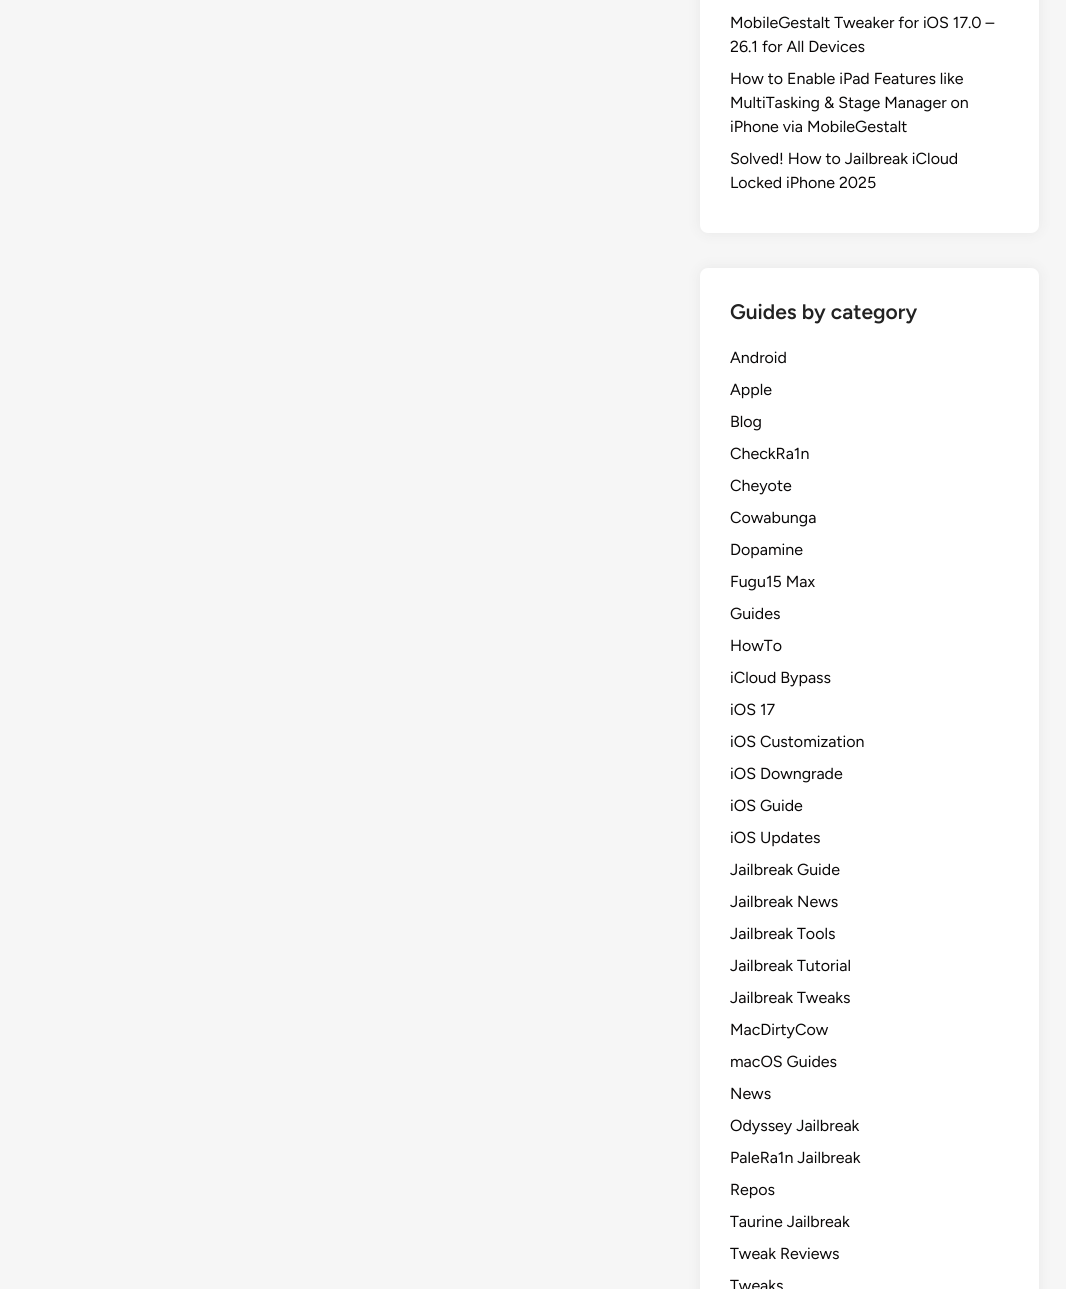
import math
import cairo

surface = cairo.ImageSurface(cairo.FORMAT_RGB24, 1066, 1289)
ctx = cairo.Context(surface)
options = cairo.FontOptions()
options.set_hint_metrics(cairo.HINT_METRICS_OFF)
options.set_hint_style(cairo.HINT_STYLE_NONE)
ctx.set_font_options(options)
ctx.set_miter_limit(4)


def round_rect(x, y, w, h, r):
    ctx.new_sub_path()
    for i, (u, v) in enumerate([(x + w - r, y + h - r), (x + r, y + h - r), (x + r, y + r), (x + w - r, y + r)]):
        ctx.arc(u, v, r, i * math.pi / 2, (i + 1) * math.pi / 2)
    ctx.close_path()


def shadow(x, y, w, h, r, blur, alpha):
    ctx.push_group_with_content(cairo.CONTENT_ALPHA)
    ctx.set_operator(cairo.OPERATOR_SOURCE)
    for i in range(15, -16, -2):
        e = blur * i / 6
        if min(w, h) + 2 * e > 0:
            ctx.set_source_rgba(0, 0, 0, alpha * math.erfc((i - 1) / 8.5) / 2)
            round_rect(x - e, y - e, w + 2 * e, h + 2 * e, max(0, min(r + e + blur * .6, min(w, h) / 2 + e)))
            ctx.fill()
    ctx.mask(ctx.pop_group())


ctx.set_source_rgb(0.961, 0.961, 0.961)
ctx.paint()
ctx.set_source_rgb(0, 0, 0)
shadow(700, -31, 339, 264, 8, 7.5, 0.06)
ctx.set_source_rgb(1, 1, 1)
round_rect(700, -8, 339, 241, 8)
ctx.fill()
ctx.select_font_face("Figtree")
ctx.set_font_size(16)
ctx.set_source_rgb(0.039, 0.031, 0.031)
ctx.move_to(730, 28)
ctx.show_text("MobileGestalt Tweaker for iOS 17.0 –")
ctx.move_to(730, 52)
ctx.show_text("26.1 for All Devices")
ctx.move_to(730, 84)
ctx.show_text("How to Enable iPad Features like")
ctx.move_to(730, 108)
ctx.show_text("MultiTasking & Stage Manager on")
ctx.move_to(730, 132)
ctx.show_text("iPhone via MobileGestalt")
ctx.move_to(730, 164)
ctx.show_text("Solved! How to Jailbreak iCloud")
ctx.move_to(730, 188)
ctx.show_text("Locked iPhone 2025")
ctx.set_source_rgb(0, 0, 0)
shadow(700, 268, 339, 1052, 8, 7.5, 0.06)
ctx.set_source_rgb(1, 1, 1)
round_rect(700, 268, 339, 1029, 8)
ctx.fill()
ctx.select_font_face("Figtree SemiBold")
ctx.set_font_size(21)
ctx.set_source_rgb(0.133, 0.133, 0.133)
ctx.move_to(730, 319)
ctx.show_text("Guides by category")
ctx.select_font_face("Figtree")
ctx.set_font_size(16)
ctx.set_source_rgb(0.039, 0.031, 0.031)
ctx.move_to(730, 363)
ctx.show_text("Android")
ctx.move_to(730, 395)
ctx.show_text("Apple")
ctx.move_to(730, 427)
ctx.show_text("Blog")
ctx.move_to(730, 459)
ctx.show_text("CheckRa1n")
ctx.move_to(730, 491)
ctx.show_text("Cheyote")
ctx.move_to(730, 523)
ctx.show_text("Cowabunga")
ctx.move_to(730, 555)
ctx.show_text("Dopamine")
ctx.move_to(730, 587)
ctx.show_text("Fugu15 Max")
ctx.move_to(730, 619)
ctx.show_text("Guides")
ctx.move_to(730, 651)
ctx.show_text("HowTo")
ctx.move_to(730, 683)
ctx.show_text("iCloud Bypass")
ctx.move_to(730, 715)
ctx.show_text("iOS 17")
ctx.move_to(730, 747)
ctx.show_text("iOS Customization")
ctx.move_to(730, 779)
ctx.show_text("iOS Downgrade")
ctx.move_to(730, 811)
ctx.show_text("iOS Guide")
ctx.move_to(730, 843)
ctx.show_text("iOS Updates")
ctx.move_to(730, 875)
ctx.show_text("Jailbreak Guide")
ctx.move_to(730, 907)
ctx.show_text("Jailbreak News")
ctx.move_to(730, 939)
ctx.show_text("Jailbreak Tools")
ctx.move_to(730, 971)
ctx.show_text("Jailbreak Tutorial")
ctx.move_to(730, 1003)
ctx.show_text("Jailbreak Tweaks")
ctx.move_to(730, 1035)
ctx.show_text("MacDirtyCow")
ctx.move_to(730, 1067)
ctx.show_text("macOS Guides")
ctx.move_to(730, 1099)
ctx.show_text("News")
ctx.move_to(730, 1131)
ctx.show_text("Odyssey Jailbreak")
ctx.move_to(730, 1163)
ctx.show_text("PaleRa1n Jailbreak")
ctx.move_to(730, 1195)
ctx.show_text("Repos")
ctx.move_to(730, 1227)
ctx.show_text("Taurine Jailbreak")
ctx.move_to(730, 1259)
ctx.show_text("Tweak Reviews")
ctx.move_to(730, 1291)
ctx.show_text("Tweaks")
surface.write_to_png("page.png")
